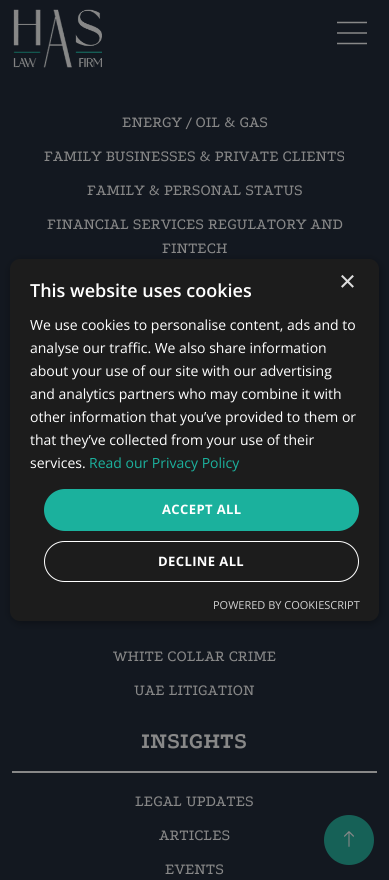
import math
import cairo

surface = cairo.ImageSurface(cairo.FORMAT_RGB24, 389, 880)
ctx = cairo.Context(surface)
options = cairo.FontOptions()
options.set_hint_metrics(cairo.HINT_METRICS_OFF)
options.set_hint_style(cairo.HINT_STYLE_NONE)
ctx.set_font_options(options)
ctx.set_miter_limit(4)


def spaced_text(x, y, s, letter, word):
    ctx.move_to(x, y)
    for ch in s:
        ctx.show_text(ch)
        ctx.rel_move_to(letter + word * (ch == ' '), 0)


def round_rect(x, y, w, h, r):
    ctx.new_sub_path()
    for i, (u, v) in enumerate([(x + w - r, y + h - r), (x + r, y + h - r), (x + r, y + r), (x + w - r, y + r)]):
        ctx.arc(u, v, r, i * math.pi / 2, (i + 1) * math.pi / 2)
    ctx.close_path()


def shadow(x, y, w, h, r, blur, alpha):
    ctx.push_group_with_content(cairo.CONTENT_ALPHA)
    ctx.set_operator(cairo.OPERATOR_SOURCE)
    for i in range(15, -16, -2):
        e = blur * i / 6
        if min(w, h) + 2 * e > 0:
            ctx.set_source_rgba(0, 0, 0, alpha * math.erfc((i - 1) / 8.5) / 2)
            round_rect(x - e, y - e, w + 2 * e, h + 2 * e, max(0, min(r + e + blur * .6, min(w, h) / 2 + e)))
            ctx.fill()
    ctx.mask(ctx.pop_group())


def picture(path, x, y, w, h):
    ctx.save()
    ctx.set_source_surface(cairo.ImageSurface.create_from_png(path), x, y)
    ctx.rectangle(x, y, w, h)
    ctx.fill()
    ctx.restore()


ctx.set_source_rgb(0.078, 0.094, 0.125)
ctx.paint()
picture("img1.png", 13, 9, 89, 59)
ctx.new_path()
ctx.move_to(337, 22.5)
ctx.line_to(367, 22.5)
ctx.set_source_rgb(0.533, 0.533, 0.533)
ctx.set_line_width(1.5)
ctx.stroke()
ctx.set_source_rgb(0.42, 0.424, 0.431)
ctx.rectangle(337, 32, 30, 2)
ctx.fill()
ctx.new_path()
ctx.move_to(337, 43.5)
ctx.line_to(367, 43.5)
ctx.set_source_rgb(0.533, 0.533, 0.533)
ctx.stroke()
ctx.select_font_face("Podkova")
ctx.set_font_size(16)
ctx.move_to(122, 127)
ctx.show_text("ENERGY / OIL & GAS")
ctx.move_to(44, 161)
ctx.show_text("FAMILY BUSINESSES & PRIVATE CLIENTS")
ctx.move_to(87, 195)
ctx.show_text("FAMILY & PERSONAL STATUS")
ctx.move_to(47, 229)
ctx.show_text("FINANCIAL SERVICES REGULATORY AND")
ctx.move_to(162, 253)
ctx.show_text("FINTECH")
ctx.move_to(113, 661)
ctx.show_text("WHITE COLLAR CRIME")
ctx.move_to(134, 695)
ctx.show_text("UAE LITIGATION")
ctx.rectangle(12, 771, 365, 2)
ctx.fill()
ctx.select_font_face("Podkova", cairo.FONT_SLANT_NORMAL, cairo.FONT_WEIGHT_BOLD)
ctx.set_font_size(23)
ctx.move_to(141, 748)
ctx.show_text("INSIGHTS")
ctx.select_font_face("Podkova")
ctx.set_font_size(16)
ctx.move_to(135, 806)
ctx.show_text("LEGAL UPDATES")
ctx.move_to(159, 840)
ctx.show_text("ARTICLES")
ctx.move_to(165, 874)
ctx.show_text("EVENTS")
ctx.set_source_rgb(0, 0, 0)
shadow(11, 261, 369, 362, 10, 4, 0.35)
ctx.set_source_rgb(0.11, 0.11, 0.11)
round_rect(10, 259, 369, 362, 10)
ctx.fill()
ctx.select_font_face("Liberation Sans")
ctx.set_font_size(29)
ctx.set_source_rgb(0.867, 0.867, 0.867)
ctx.move_to(339, 291)
ctx.show_text("×")
ctx.select_font_face("Open Sans SemiBold")
ctx.set_font_size(18)
ctx.set_source_rgb(1, 1, 1)
ctx.move_to(30, 297)
ctx.show_text("This website uses cookies")
ctx.select_font_face("Open Sans")
ctx.set_font_size(14)
ctx.move_to(30, 330)
ctx.show_text("We use cookies to personalise content, ads and to")
ctx.move_to(30, 353)
ctx.show_text("analyse our traffic. We also share information")
ctx.move_to(30, 376)
ctx.show_text("about your use of our site with our advertising")
ctx.move_to(30, 399)
ctx.show_text("and analytics partners who may combine it with")
ctx.move_to(30, 422)
ctx.show_text("other information that you’ve provided to them or")
ctx.move_to(30, 445)
ctx.show_text("that they’ve collected from your use of their")
ctx.move_to(30, 468)
ctx.show_text("services.")
ctx.set_source_rgb(0.106, 0.694, 0.616)
ctx.move_to(89, 468)
ctx.show_text("Read our Privacy Policy")
round_rect(44, 489, 315, 42, 21)
ctx.fill()
ctx.select_font_face("Open Sans", cairo.FONT_SLANT_NORMAL, cairo.FONT_WEIGHT_BOLD)
ctx.set_font_size(13)
ctx.set_source_rgb(1, 1, 1)
spaced_text(162, 514, "ACCEPT ALL", 0.4, 0)
round_rect(44.5, 541.5, 314, 40, 20)
ctx.set_line_width(1)
ctx.stroke()
spaced_text(158, 566, "DECLINE ALL", 0.4, 0)
ctx.select_font_face("Open Sans")
ctx.set_font_size(11)
ctx.set_source_rgb(0.824, 0.824, 0.824)
ctx.move_to(213, 609)
ctx.show_text("POWERED BY COOKIESCRIPT")
ctx.set_source_rgb(0.086, 0.38, 0.341)
ctx.new_path()
ctx.arc(349, 840, 25, 0, 2 * math.pi)
ctx.fill()
picture("img2.png", 344, 831, 10, 16)
surface.write_to_png("page.png")
